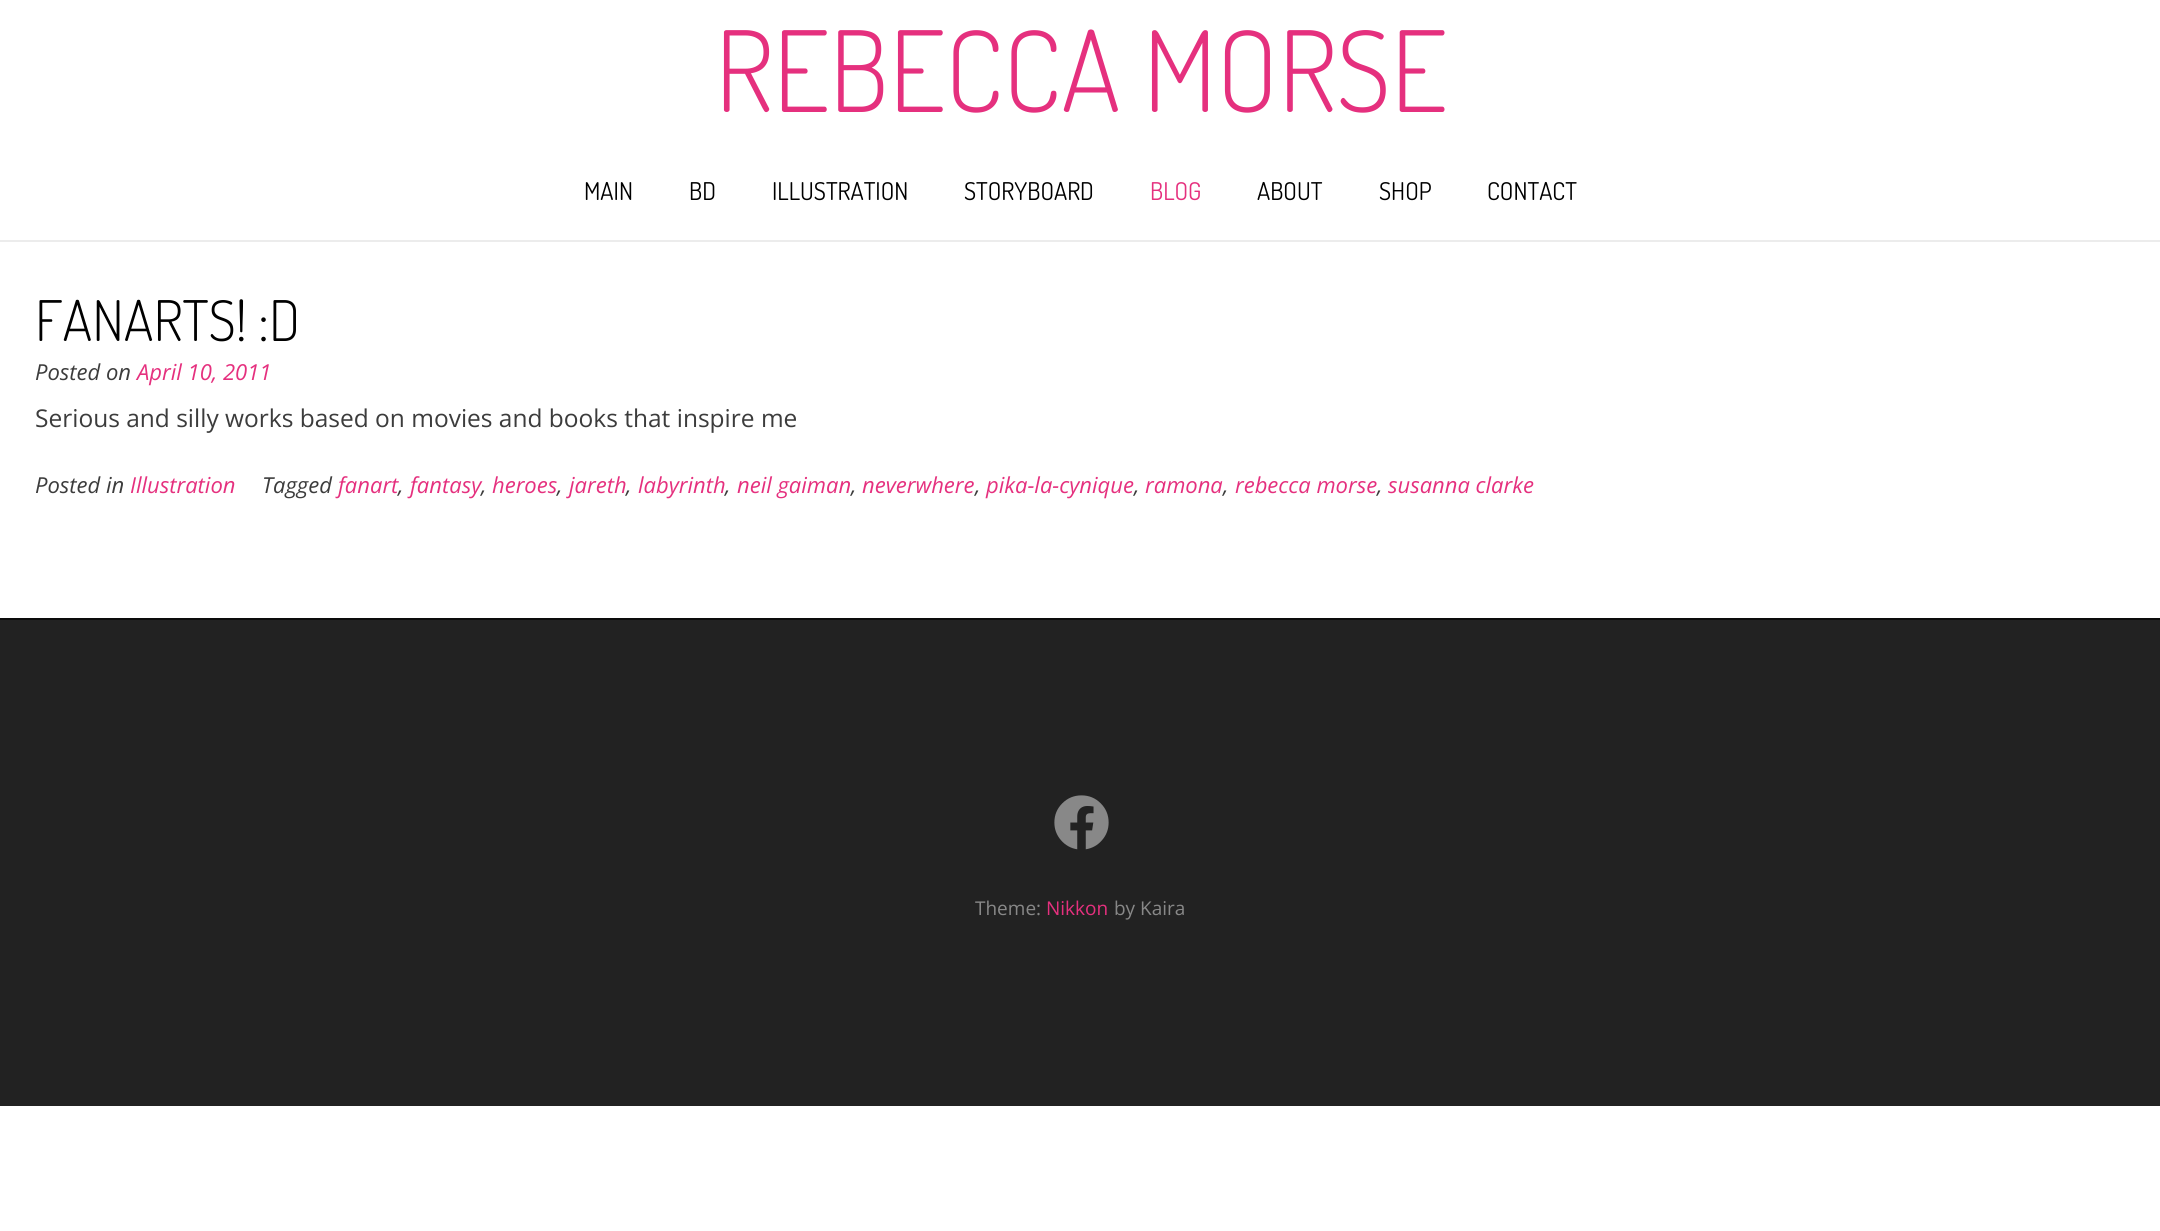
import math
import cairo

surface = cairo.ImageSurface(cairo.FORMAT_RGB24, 2160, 1231)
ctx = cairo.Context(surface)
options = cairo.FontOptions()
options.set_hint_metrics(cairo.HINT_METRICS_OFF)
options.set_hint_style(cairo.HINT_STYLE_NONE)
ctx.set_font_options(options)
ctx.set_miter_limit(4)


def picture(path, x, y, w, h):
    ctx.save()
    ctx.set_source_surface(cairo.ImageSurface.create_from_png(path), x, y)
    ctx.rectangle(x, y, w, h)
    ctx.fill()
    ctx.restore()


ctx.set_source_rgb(1, 1, 1)
ctx.paint()
ctx.set_source_rgb(0.922, 0.922, 0.922)
ctx.rectangle(0, 240, 2160, 2)
ctx.fill()
ctx.select_font_face("Dosis Light")
ctx.set_font_size(112)
ctx.set_source_rgb(0.898, 0.188, 0.494)
ctx.move_to(715, 112)
ctx.show_text("REBECCA MORSE")
ctx.select_font_face("Dosis")
ctx.set_font_size(24.5)
ctx.set_source_rgb(0, 0, 0)
ctx.move_to(584, 200)
ctx.show_text("MAIN")
ctx.move_to(689, 200)
ctx.show_text("BD")
ctx.move_to(772, 200)
ctx.show_text("ILLUSTRATION")
ctx.move_to(964, 200)
ctx.show_text("STORYBOARD")
ctx.set_source_rgb(0.898, 0.188, 0.494)
ctx.move_to(1150, 200)
ctx.show_text("BLOG")
ctx.set_source_rgb(0, 0, 0)
ctx.move_to(1257, 200)
ctx.show_text("ABOUT")
ctx.move_to(1379, 200)
ctx.show_text("SHOP")
ctx.move_to(1487, 200)
ctx.show_text("CONTACT")
ctx.select_font_face("Dosis Light")
ctx.set_font_size(56)
ctx.move_to(35, 341)
ctx.show_text("FANARTS! :D")
ctx.select_font_face("Open Sans", cairo.FONT_SLANT_ITALIC)
ctx.set_font_size(22)
ctx.set_source_rgb(0.235, 0.235, 0.235)
ctx.move_to(35, 380)
ctx.show_text("Posted on")
ctx.set_source_rgb(0.898, 0.188, 0.494)
ctx.move_to(137, 380)
ctx.show_text("April 10, 2011")
ctx.select_font_face("Open Sans")
ctx.set_font_size(24.5)
ctx.set_source_rgb(0.235, 0.235, 0.235)
ctx.move_to(35, 427)
ctx.show_text("Serious and silly works based on movies and books that inspire me")
ctx.select_font_face("Open Sans", cairo.FONT_SLANT_ITALIC)
ctx.set_font_size(22)
ctx.move_to(35, 493)
ctx.show_text("Posted in")
ctx.set_source_rgb(0.898, 0.188, 0.494)
ctx.move_to(130, 493)
ctx.show_text("Illustration")
ctx.set_source_rgb(0.235, 0.235, 0.235)
ctx.move_to(262, 493)
ctx.show_text("Tagged")
ctx.set_source_rgb(0.898, 0.188, 0.494)
ctx.move_to(338, 493)
ctx.show_text("fanart")
ctx.set_source_rgb(0.235, 0.235, 0.235)
ctx.move_to(398, 493)
ctx.show_text(",")
ctx.set_source_rgb(0.898, 0.188, 0.494)
ctx.move_to(410, 493)
ctx.show_text("fantasy")
ctx.set_source_rgb(0.235, 0.235, 0.235)
ctx.move_to(481, 493)
ctx.show_text(",")
ctx.set_source_rgb(0.898, 0.188, 0.494)
ctx.move_to(492, 493)
ctx.show_text("heroes")
ctx.set_source_rgb(0.235, 0.235, 0.235)
ctx.move_to(557, 493)
ctx.show_text(",")
ctx.set_source_rgb(0.898, 0.188, 0.494)
ctx.move_to(569, 493)
ctx.show_text("jareth")
ctx.set_source_rgb(0.235, 0.235, 0.235)
ctx.move_to(626, 493)
ctx.show_text(",")
ctx.set_source_rgb(0.898, 0.188, 0.494)
ctx.move_to(638, 493)
ctx.show_text("labyrinth")
ctx.set_source_rgb(0.235, 0.235, 0.235)
ctx.move_to(725, 493)
ctx.show_text(",")
ctx.set_source_rgb(0.898, 0.188, 0.494)
ctx.move_to(737, 493)
ctx.show_text("neil gaiman")
ctx.set_source_rgb(0.235, 0.235, 0.235)
ctx.move_to(851, 493)
ctx.show_text(",")
ctx.set_source_rgb(0.898, 0.188, 0.494)
ctx.move_to(862, 493)
ctx.show_text("neverwhere")
ctx.set_source_rgb(0.235, 0.235, 0.235)
ctx.move_to(975, 493)
ctx.show_text(",")
ctx.set_source_rgb(0.898, 0.188, 0.494)
ctx.move_to(986, 493)
ctx.show_text("pika-la-cynique")
ctx.set_source_rgb(0.235, 0.235, 0.235)
ctx.move_to(1134, 493)
ctx.show_text(",")
ctx.set_source_rgb(0.898, 0.188, 0.494)
ctx.move_to(1145, 493)
ctx.show_text("ramona")
ctx.set_source_rgb(0.235, 0.235, 0.235)
ctx.move_to(1223, 493)
ctx.show_text(",")
ctx.set_source_rgb(0.898, 0.188, 0.494)
ctx.move_to(1235, 493)
ctx.show_text("rebecca morse")
ctx.set_source_rgb(0.235, 0.235, 0.235)
ctx.move_to(1377, 493)
ctx.show_text(",")
ctx.set_source_rgb(0.898, 0.188, 0.494)
ctx.move_to(1388, 493)
ctx.show_text("susanna clarke")
ctx.set_source_rgb(0.133, 0.133, 0.133)
ctx.rectangle(0, 620, 2160, 486)
ctx.fill()
ctx.set_source_rgb(0.047, 0.047, 0.047)
ctx.rectangle(0, 618, 2160, 2)
ctx.fill()
picture("img1.png", 1054, 795, 55, 55)
ctx.select_font_face("Open Sans")
ctx.set_font_size(19)
ctx.set_source_rgb(0.533, 0.533, 0.533)
ctx.move_to(975, 915)
ctx.show_text("Theme:")
ctx.set_source_rgb(0.898, 0.188, 0.494)
ctx.move_to(1046, 915)
ctx.show_text("Nikkon")
ctx.set_source_rgb(0.533, 0.533, 0.533)
ctx.move_to(1114, 915)
ctx.show_text("by Kaira")
surface.write_to_png("page.png")
